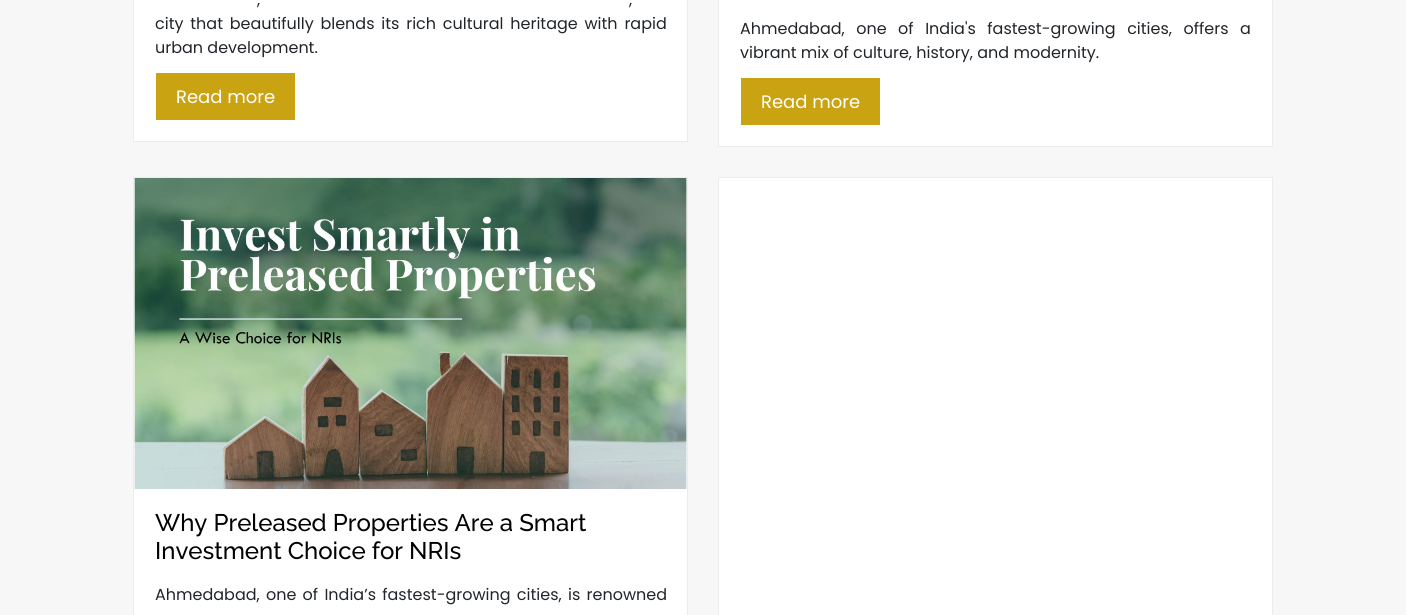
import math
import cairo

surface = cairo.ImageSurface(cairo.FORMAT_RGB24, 1406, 615)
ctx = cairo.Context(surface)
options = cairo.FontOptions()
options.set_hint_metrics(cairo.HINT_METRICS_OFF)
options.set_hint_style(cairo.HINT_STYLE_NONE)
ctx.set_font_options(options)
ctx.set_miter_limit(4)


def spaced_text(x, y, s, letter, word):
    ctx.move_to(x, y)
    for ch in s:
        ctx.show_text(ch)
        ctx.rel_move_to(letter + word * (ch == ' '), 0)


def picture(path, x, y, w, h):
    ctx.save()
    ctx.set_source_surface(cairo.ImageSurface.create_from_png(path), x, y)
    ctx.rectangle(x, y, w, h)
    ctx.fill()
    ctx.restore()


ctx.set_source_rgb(0.965, 0.965, 0.965)
ctx.paint()
ctx.set_source_rgb(1, 1, 1)
ctx.rectangle(133.5, -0.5, 554, 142)
ctx.fill_preserve()
ctx.set_source_rgb(0.925, 0.925, 0.925)
ctx.set_line_width(1)
ctx.stroke()
ctx.select_font_face("Poppins")
ctx.set_font_size(16)
ctx.set_source_rgb(0.129, 0.145, 0.161)
spaced_text(257, 5, ",", 0, 1)
spaced_text(629, 5, ",", 0, 1)
spaced_text(155, 29, "city that beautifully blends its rich cultural heritage with rapid", 0, 2.5)
ctx.move_to(155, 53)
ctx.show_text("urban development.")
ctx.set_source_rgb(0.788, 0.639, 0.067)
ctx.rectangle(156, 73, 139, 47)
ctx.fill()
ctx.set_font_size(18)
ctx.set_source_rgb(1, 1, 1)
ctx.move_to(176, 103)
ctx.show_text("Read more")
ctx.rectangle(718.5, -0.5, 554, 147)
ctx.fill_preserve()
ctx.set_source_rgb(0.925, 0.925, 0.925)
ctx.stroke()
ctx.set_font_size(16)
ctx.set_source_rgb(0.129, 0.145, 0.161)
spaced_text(740, 34, "Ahmedabad, one of India's fastest-growing cities, offers a", 0, 7.25)
ctx.move_to(740, 58)
ctx.show_text("vibrant mix of culture, history, and modernity.")
ctx.set_source_rgb(0.788, 0.639, 0.067)
ctx.rectangle(741, 78, 139, 47)
ctx.fill()
ctx.set_font_size(18)
ctx.set_source_rgb(1, 1, 1)
ctx.move_to(761, 108)
ctx.show_text("Read more")
ctx.rectangle(134, 489, 553, 126)
ctx.fill()
ctx.rectangle(133.5, 177.5, 554, 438)
ctx.set_source_rgb(0.925, 0.925, 0.925)
ctx.stroke()
picture("img1.png", 134, 178, 553, 311)
ctx.select_font_face("Raleway Medium")
ctx.set_font_size(24)
ctx.set_source_rgb(0, 0, 0)
ctx.move_to(155, 531)
ctx.show_text("Why Preleased Properties Are a Smart")
ctx.move_to(155, 559)
ctx.show_text("Investment Choice for NRIs")
ctx.select_font_face("Poppins")
ctx.set_font_size(16)
ctx.set_source_rgb(0.129, 0.145, 0.161)
spaced_text(155, 600, "Ahmedabad, one of India’s fastest-growing cities, is renowned", 0, 2)
ctx.set_source_rgb(1, 1, 1)
ctx.rectangle(718.5, 177.5, 554, 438)
ctx.fill_preserve()
ctx.set_source_rgb(0.925, 0.925, 0.925)
ctx.stroke()
surface.write_to_png("page.png")
